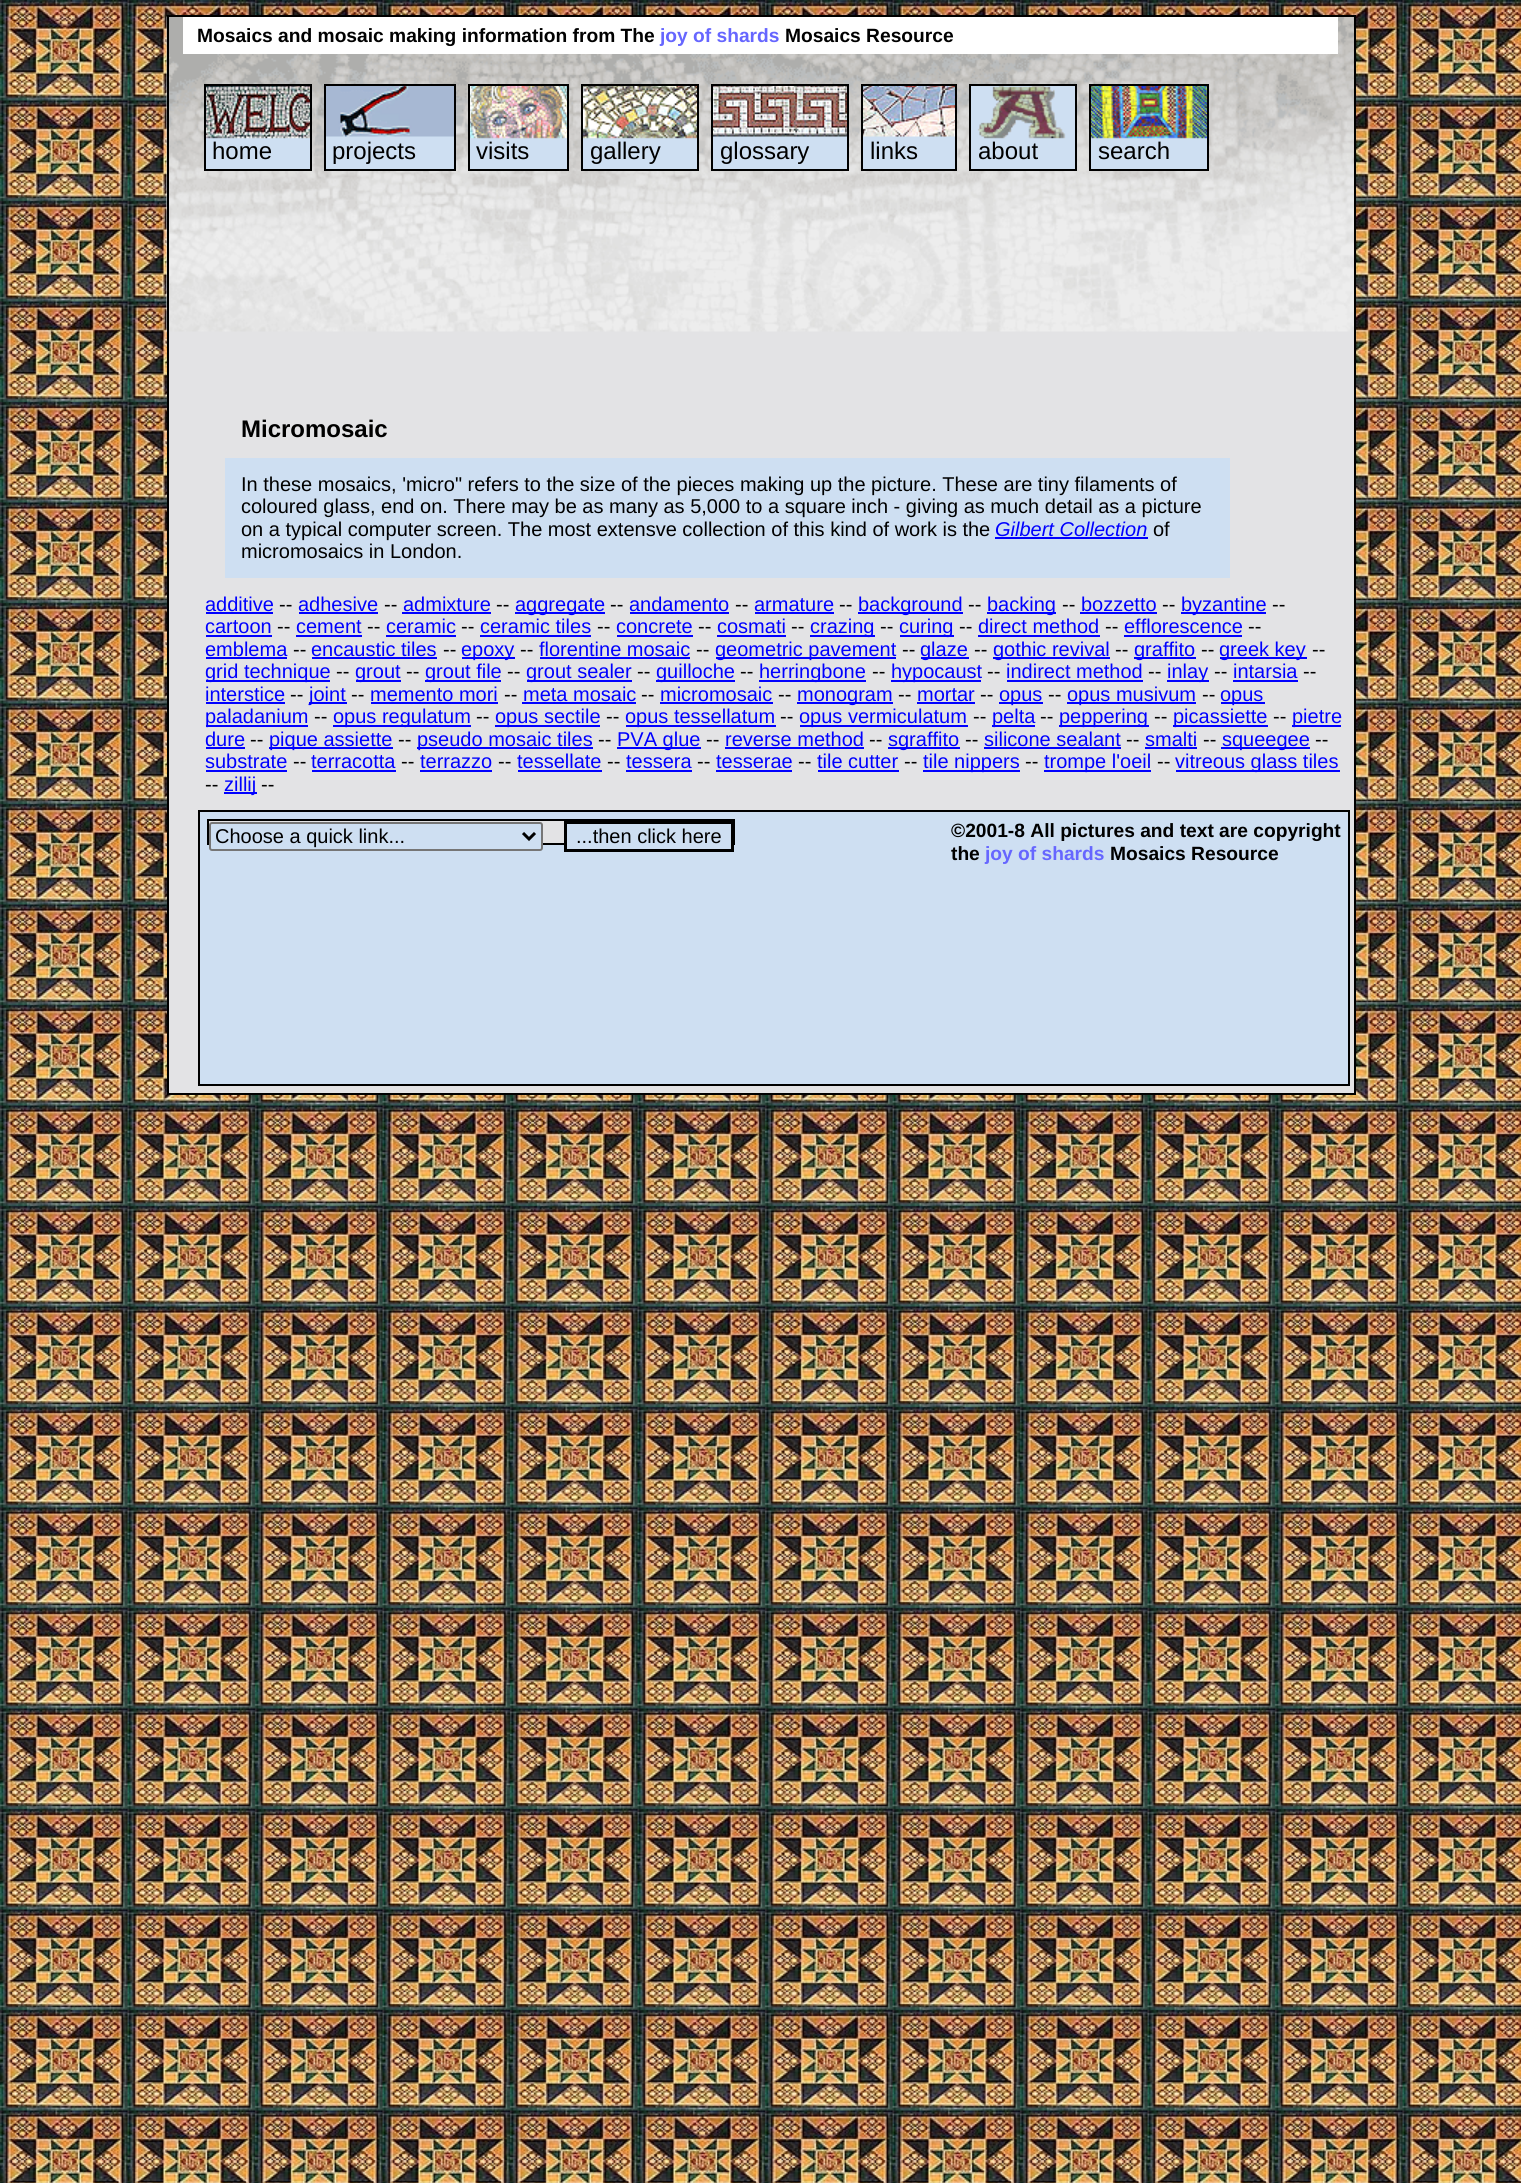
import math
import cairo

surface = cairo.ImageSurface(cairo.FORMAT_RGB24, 1521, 2183)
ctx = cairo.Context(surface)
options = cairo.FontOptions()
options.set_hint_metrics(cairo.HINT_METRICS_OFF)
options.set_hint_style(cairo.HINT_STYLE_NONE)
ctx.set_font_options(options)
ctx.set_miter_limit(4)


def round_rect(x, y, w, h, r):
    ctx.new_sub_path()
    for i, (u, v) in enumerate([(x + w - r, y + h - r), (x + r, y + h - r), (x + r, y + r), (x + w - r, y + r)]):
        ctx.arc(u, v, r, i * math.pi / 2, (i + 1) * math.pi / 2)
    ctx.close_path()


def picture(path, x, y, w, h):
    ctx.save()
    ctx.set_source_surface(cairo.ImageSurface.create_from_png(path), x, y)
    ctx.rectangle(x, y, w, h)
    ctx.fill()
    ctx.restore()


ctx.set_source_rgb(1, 1, 1)
ctx.paint()
picture("img1.png", 0, 0, 1521, 2183)
ctx.set_source_rgb(0.89, 0.89, 0.898)
ctx.rectangle(169, 331, 1185, 762)
ctx.fill()
picture("img2.png", 166, 16, 1188, 316)
ctx.rectangle(168, 16, 1187, 1078)
ctx.set_source_rgb(0, 0, 0)
ctx.stroke()
ctx.set_source_rgb(1, 1, 1)
ctx.rectangle(183, 17, 1155, 37)
ctx.fill()
ctx.select_font_face("Liberation Sans", cairo.FONT_SLANT_NORMAL, cairo.FONT_WEIGHT_BOLD)
ctx.set_font_size(19.2)
ctx.set_source_rgb(0, 0, 0)
ctx.move_to(197, 42)
ctx.show_text("Mosaics and mosaic making information from The")
ctx.set_source_rgb(0.4, 0.4, 1)
ctx.move_to(660, 42)
ctx.show_text("joy of shards")
ctx.set_source_rgb(0, 0, 0)
ctx.move_to(785, 42)
ctx.show_text("Mosaics Resource")
ctx.set_source_rgb(0.808, 0.875, 0.949)
ctx.rectangle(206, 137, 104, 32)
ctx.fill()
picture("img3.png", 206, 86, 104, 53)
ctx.rectangle(205, 85, 106, 85)
ctx.set_source_rgb(0, 0, 0)
ctx.stroke()
ctx.select_font_face("Liberation Sans")
ctx.set_font_size(24)
ctx.move_to(212, 159)
ctx.show_text("home")
ctx.set_source_rgb(0.808, 0.875, 0.949)
ctx.rectangle(326, 136, 128, 33)
ctx.fill()
picture("img4.png", 326, 86, 128, 51)
ctx.rectangle(325, 85, 130, 85)
ctx.set_source_rgb(0, 0, 0)
ctx.stroke()
ctx.move_to(332, 159)
ctx.show_text("projects")
ctx.set_source_rgb(0.808, 0.875, 0.949)
ctx.rectangle(470, 137, 97, 32)
ctx.fill()
picture("img5.png", 470, 86, 97, 53)
ctx.rectangle(469, 85, 99, 85)
ctx.set_source_rgb(0, 0, 0)
ctx.stroke()
ctx.move_to(476, 159)
ctx.show_text("visits")
ctx.set_source_rgb(0.808, 0.875, 0.949)
ctx.rectangle(583, 137, 114, 32)
ctx.fill()
picture("img6.png", 583, 86, 114, 53)
ctx.rectangle(582, 85, 116, 85)
ctx.set_source_rgb(0, 0, 0)
ctx.stroke()
ctx.move_to(590, 159)
ctx.show_text("gallery")
ctx.set_source_rgb(0.808, 0.875, 0.949)
ctx.rectangle(713, 136, 134, 33)
ctx.fill()
picture("img7.png", 713, 86, 134, 51)
ctx.rectangle(712, 85, 136, 85)
ctx.set_source_rgb(0, 0, 0)
ctx.stroke()
ctx.move_to(720, 159)
ctx.show_text("glossary")
ctx.set_source_rgb(0.808, 0.875, 0.949)
ctx.rectangle(863, 136, 92, 33)
ctx.fill()
picture("img8.png", 863, 86, 92, 51)
ctx.rectangle(862, 85, 94, 85)
ctx.set_source_rgb(0, 0, 0)
ctx.stroke()
ctx.move_to(870, 159)
ctx.show_text("links")
ctx.set_source_rgb(0.808, 0.875, 0.949)
ctx.rectangle(971, 86, 104, 83)
ctx.fill()
picture("img9.png", 977, 86, 89, 53)
ctx.rectangle(970, 85, 106, 85)
ctx.set_source_rgb(0, 0, 0)
ctx.stroke()
ctx.move_to(978, 159)
ctx.show_text("about")
ctx.set_source_rgb(0.808, 0.875, 0.949)
ctx.rectangle(1091, 137, 116, 32)
ctx.fill()
picture("img10.png", 1091, 86, 116, 53)
ctx.rectangle(1090, 85, 118, 85)
ctx.set_source_rgb(0, 0, 0)
ctx.stroke()
ctx.move_to(1098, 159)
ctx.show_text("search")
ctx.select_font_face("Liberation Sans", cairo.FONT_SLANT_NORMAL, cairo.FONT_WEIGHT_BOLD)
ctx.move_to(241, 437)
ctx.show_text("Micromosaic")
ctx.set_source_rgb(0.808, 0.875, 0.949)
ctx.rectangle(225, 458, 1005, 120)
ctx.fill()
ctx.select_font_face("Liberation Sans")
ctx.set_font_size(20)
ctx.set_source_rgb(0, 0, 0)
ctx.move_to(241, 491)
ctx.show_text("In these mosaics, 'micro\" refers to the size of the pieces making up the picture. These are tiny filaments of")
ctx.move_to(241, 513)
ctx.show_text("coloured glass, end on. There may be as many as 5,000 to a square inch - giving as much detail as a picture")
ctx.move_to(241, 536)
ctx.show_text("on a typical computer screen. The most extensve collection of this kind of work is the")
ctx.select_font_face("Liberation Sans", cairo.FONT_SLANT_ITALIC)
ctx.set_source_rgb(0, 0, 1)
ctx.move_to(995, 536)
ctx.show_text("Gilbert Collection")
ctx.rectangle(995, 537, 153, 2)
ctx.fill()
ctx.select_font_face("Liberation Sans")
ctx.set_source_rgb(0, 0, 0)
ctx.move_to(1153, 536)
ctx.show_text("of")
ctx.move_to(241, 558)
ctx.show_text("micromosaics in London.")
ctx.set_source_rgb(0, 0, 1)
ctx.move_to(205, 611)
ctx.show_text("additive")
ctx.rectangle(206, 612, 67, 2)
ctx.fill()
ctx.set_source_rgb(0, 0, 0)
ctx.move_to(279, 611)
ctx.show_text("--")
ctx.set_source_rgb(0, 0, 1)
ctx.move_to(298, 611)
ctx.show_text("adhesive")
ctx.rectangle(299, 612, 79, 2)
ctx.fill()
ctx.set_source_rgb(0, 0, 0)
ctx.move_to(384, 611)
ctx.show_text("--")
ctx.set_source_rgb(0, 0, 1)
ctx.move_to(403, 611)
ctx.show_text("admixture")
ctx.rectangle(402, 612, 89, 2)
ctx.fill()
ctx.set_source_rgb(0, 0, 0)
ctx.move_to(496, 611)
ctx.show_text("--")
ctx.set_source_rgb(0, 0, 1)
ctx.rectangle(515, 612, 90, 2)
ctx.fill()
ctx.move_to(515, 611)
ctx.show_text("aggregate")
ctx.set_source_rgb(0, 0, 0)
ctx.move_to(610, 611)
ctx.show_text("--")
ctx.set_source_rgb(0, 0, 1)
ctx.move_to(629, 611)
ctx.show_text("andamento")
ctx.rectangle(630, 612, 99, 2)
ctx.fill()
ctx.set_source_rgb(0, 0, 0)
ctx.move_to(735, 611)
ctx.show_text("--")
ctx.set_source_rgb(0, 0, 1)
ctx.move_to(754, 611)
ctx.show_text("armature")
ctx.rectangle(755, 612, 79, 2)
ctx.fill()
ctx.set_source_rgb(0, 0, 0)
ctx.move_to(839, 611)
ctx.show_text("--")
ctx.set_source_rgb(0, 0, 1)
ctx.rectangle(858, 612, 105, 2)
ctx.fill()
ctx.move_to(858, 611)
ctx.show_text("background")
ctx.set_source_rgb(0, 0, 0)
ctx.move_to(968, 611)
ctx.show_text("--")
ctx.set_source_rgb(0, 0, 1)
ctx.rectangle(987, 612, 69, 2)
ctx.fill()
ctx.move_to(987, 611)
ctx.show_text("backing")
ctx.set_source_rgb(0, 0, 0)
ctx.move_to(1062, 611)
ctx.show_text("--")
ctx.set_source_rgb(0, 0, 1)
ctx.move_to(1081, 611)
ctx.show_text("bozzetto")
ctx.rectangle(1080, 612, 77, 2)
ctx.fill()
ctx.set_source_rgb(0, 0, 0)
ctx.move_to(1162, 611)
ctx.show_text("--")
ctx.set_source_rgb(0, 0, 1)
ctx.rectangle(1181, 612, 85, 2)
ctx.fill()
ctx.move_to(1181, 611)
ctx.show_text("byzantine")
ctx.set_source_rgb(0, 0, 0)
ctx.move_to(1272, 611)
ctx.show_text("--")
ctx.set_source_rgb(0, 0, 1)
ctx.move_to(205, 633)
ctx.show_text("cartoon")
ctx.rectangle(206, 635, 66, 2)
ctx.fill()
ctx.set_source_rgb(0, 0, 0)
ctx.move_to(277, 633)
ctx.show_text("--")
ctx.set_source_rgb(0, 0, 1)
ctx.move_to(296, 633)
ctx.show_text("cement")
ctx.rectangle(296, 635, 66, 2)
ctx.fill()
ctx.set_source_rgb(0, 0, 0)
ctx.move_to(367, 633)
ctx.show_text("--")
ctx.set_source_rgb(0, 0, 1)
ctx.move_to(386, 633)
ctx.show_text("ceramic")
ctx.rectangle(386, 635, 70, 2)
ctx.fill()
ctx.set_source_rgb(0, 0, 0)
ctx.move_to(461, 633)
ctx.show_text("--")
ctx.set_source_rgb(0, 0, 1)
ctx.move_to(480, 633)
ctx.show_text("ceramic tiles")
ctx.rectangle(480, 635, 111, 2)
ctx.fill()
ctx.set_source_rgb(0, 0, 0)
ctx.move_to(597, 633)
ctx.show_text("--")
ctx.set_source_rgb(0, 0, 1)
ctx.move_to(616, 633)
ctx.show_text("concrete")
ctx.rectangle(617, 635, 76, 2)
ctx.fill()
ctx.set_source_rgb(0, 0, 0)
ctx.move_to(698, 633)
ctx.show_text("--")
ctx.set_source_rgb(0, 0, 1)
ctx.move_to(717, 633)
ctx.show_text("cosmati")
ctx.rectangle(717, 635, 69, 2)
ctx.fill()
ctx.set_source_rgb(0, 0, 0)
ctx.move_to(791, 633)
ctx.show_text("--")
ctx.set_source_rgb(0, 0, 1)
ctx.rectangle(810, 635, 65, 2)
ctx.fill()
ctx.move_to(810, 633)
ctx.show_text("crazing")
ctx.set_source_rgb(0, 0, 0)
ctx.move_to(880, 633)
ctx.show_text("--")
ctx.set_source_rgb(0, 0, 1)
ctx.rectangle(900, 635, 54, 2)
ctx.fill()
ctx.move_to(899, 633)
ctx.show_text("curing")
ctx.set_source_rgb(0, 0, 0)
ctx.move_to(959, 633)
ctx.show_text("--")
ctx.set_source_rgb(0, 0, 1)
ctx.move_to(978, 633)
ctx.show_text("direct method")
ctx.rectangle(978, 635, 122, 2)
ctx.fill()
ctx.set_source_rgb(0, 0, 0)
ctx.move_to(1105, 633)
ctx.show_text("--")
ctx.set_source_rgb(0, 0, 1)
ctx.move_to(1124, 633)
ctx.show_text("efflorescence")
ctx.rectangle(1124, 635, 118, 2)
ctx.fill()
ctx.set_source_rgb(0, 0, 0)
ctx.move_to(1248, 633)
ctx.show_text("--")
ctx.set_source_rgb(0, 0, 1)
ctx.move_to(205, 656)
ctx.show_text("emblema")
ctx.rectangle(206, 657, 81, 2)
ctx.fill()
ctx.set_source_rgb(0, 0, 0)
ctx.move_to(293, 656)
ctx.show_text("--")
ctx.set_source_rgb(0, 0, 1)
ctx.move_to(311, 656)
ctx.show_text("encaustic tiles")
ctx.rectangle(312, 657, 125, 2)
ctx.fill()
ctx.set_source_rgb(0, 0, 0)
ctx.move_to(443, 656)
ctx.show_text("--")
ctx.set_source_rgb(0, 0, 1)
ctx.rectangle(462, 657, 53, 2)
ctx.fill()
ctx.move_to(461, 656)
ctx.show_text("epoxy")
ctx.set_source_rgb(0, 0, 0)
ctx.move_to(520, 656)
ctx.show_text("--")
ctx.set_source_rgb(0, 0, 1)
ctx.move_to(539, 656)
ctx.show_text("florentine mosaic")
ctx.rectangle(540, 657, 150, 2)
ctx.fill()
ctx.set_source_rgb(0, 0, 0)
ctx.move_to(696, 656)
ctx.show_text("--")
ctx.set_source_rgb(0, 0, 1)
ctx.rectangle(716, 657, 180, 2)
ctx.fill()
ctx.move_to(715, 656)
ctx.show_text("geometric pavement")
ctx.set_source_rgb(0, 0, 0)
ctx.move_to(902, 656)
ctx.show_text("--")
ctx.set_source_rgb(0, 0, 1)
ctx.rectangle(921, 657, 48, 2)
ctx.fill()
ctx.move_to(920, 656)
ctx.show_text("glaze")
ctx.set_source_rgb(0, 0, 0)
ctx.move_to(974, 656)
ctx.show_text("--")
ctx.set_source_rgb(0, 0, 1)
ctx.rectangle(993, 657, 117, 2)
ctx.fill()
ctx.move_to(993, 656)
ctx.show_text("gothic revival")
ctx.set_source_rgb(0, 0, 0)
ctx.move_to(1115, 656)
ctx.show_text("--")
ctx.set_source_rgb(0, 0, 1)
ctx.rectangle(1134, 657, 62, 2)
ctx.fill()
ctx.move_to(1134, 656)
ctx.show_text("graffito")
ctx.set_source_rgb(0, 0, 0)
ctx.move_to(1201, 656)
ctx.show_text("--")
ctx.set_source_rgb(0, 0, 1)
ctx.rectangle(1220, 657, 87, 2)
ctx.fill()
ctx.move_to(1219, 656)
ctx.show_text("greek key")
ctx.set_source_rgb(0, 0, 0)
ctx.move_to(1312, 656)
ctx.show_text("--")
ctx.set_source_rgb(0, 0, 1)
ctx.rectangle(206, 680, 124, 2)
ctx.fill()
ctx.move_to(205, 678)
ctx.show_text("grid technique")
ctx.set_source_rgb(0, 0, 0)
ctx.move_to(336, 678)
ctx.show_text("--")
ctx.set_source_rgb(0, 0, 1)
ctx.rectangle(356, 680, 45, 2)
ctx.fill()
ctx.move_to(355, 678)
ctx.show_text("grout")
ctx.set_source_rgb(0, 0, 0)
ctx.move_to(406, 678)
ctx.show_text("--")
ctx.set_source_rgb(0, 0, 1)
ctx.rectangle(425, 680, 76, 2)
ctx.fill()
ctx.move_to(425, 678)
ctx.show_text("grout file")
ctx.set_source_rgb(0, 0, 0)
ctx.move_to(507, 678)
ctx.show_text("--")
ctx.set_source_rgb(0, 0, 1)
ctx.rectangle(527, 680, 105, 2)
ctx.fill()
ctx.move_to(526, 678)
ctx.show_text("grout sealer")
ctx.set_source_rgb(0, 0, 0)
ctx.move_to(637, 678)
ctx.show_text("--")
ctx.set_source_rgb(0, 0, 1)
ctx.rectangle(656, 680, 79, 2)
ctx.fill()
ctx.move_to(656, 678)
ctx.show_text("guilloche")
ctx.set_source_rgb(0, 0, 0)
ctx.move_to(740, 678)
ctx.show_text("--")
ctx.set_source_rgb(0, 0, 1)
ctx.rectangle(759, 680, 107, 2)
ctx.fill()
ctx.move_to(759, 678)
ctx.show_text("herringbone")
ctx.set_source_rgb(0, 0, 0)
ctx.move_to(872, 678)
ctx.show_text("--")
ctx.set_source_rgb(0, 0, 1)
ctx.rectangle(891, 680, 90, 2)
ctx.fill()
ctx.move_to(891, 678)
ctx.show_text("hypocaust")
ctx.set_source_rgb(0, 0, 0)
ctx.move_to(987, 678)
ctx.show_text("--")
ctx.set_source_rgb(0, 0, 1)
ctx.move_to(1006, 678)
ctx.show_text("indirect method")
ctx.rectangle(1007, 680, 136, 2)
ctx.fill()
ctx.set_source_rgb(0, 0, 0)
ctx.move_to(1148, 678)
ctx.show_text("--")
ctx.set_source_rgb(0, 0, 1)
ctx.rectangle(1167, 680, 42, 2)
ctx.fill()
ctx.move_to(1167, 678)
ctx.show_text("inlay")
ctx.set_source_rgb(0, 0, 0)
ctx.move_to(1214, 678)
ctx.show_text("--")
ctx.set_source_rgb(0, 0, 1)
ctx.move_to(1233, 678)
ctx.show_text("intarsia")
ctx.rectangle(1233, 680, 65, 2)
ctx.fill()
ctx.set_source_rgb(0, 0, 0)
ctx.move_to(1303, 678)
ctx.show_text("--")
ctx.set_source_rgb(0, 0, 1)
ctx.move_to(205, 701)
ctx.show_text("interstice")
ctx.rectangle(206, 702, 79, 2)
ctx.fill()
ctx.set_source_rgb(0, 0, 0)
ctx.move_to(290, 701)
ctx.show_text("--")
ctx.set_source_rgb(0, 0, 1)
ctx.rectangle(309, 702, 38, 2)
ctx.fill()
ctx.move_to(309, 701)
ctx.show_text("joint")
ctx.set_source_rgb(0, 0, 0)
ctx.move_to(351, 701)
ctx.show_text("--")
ctx.set_source_rgb(0, 0, 1)
ctx.move_to(370, 701)
ctx.show_text("memento mori")
ctx.rectangle(371, 702, 127, 2)
ctx.fill()
ctx.set_source_rgb(0, 0, 0)
ctx.move_to(504, 701)
ctx.show_text("--")
ctx.set_source_rgb(0, 0, 1)
ctx.move_to(523, 701)
ctx.show_text("meta mosaic")
ctx.rectangle(522, 702, 114, 2)
ctx.fill()
ctx.set_source_rgb(0, 0, 0)
ctx.move_to(641, 701)
ctx.show_text("--")
ctx.set_source_rgb(0, 0, 1)
ctx.move_to(660, 701)
ctx.show_text("micromosaic")
ctx.rectangle(660, 702, 113, 2)
ctx.fill()
ctx.set_source_rgb(0, 0, 0)
ctx.move_to(778, 701)
ctx.show_text("--")
ctx.set_source_rgb(0, 0, 1)
ctx.rectangle(797, 702, 96, 2)
ctx.fill()
ctx.move_to(797, 701)
ctx.show_text("monogram")
ctx.set_source_rgb(0, 0, 0)
ctx.move_to(898, 701)
ctx.show_text("--")
ctx.set_source_rgb(0, 0, 1)
ctx.move_to(917, 701)
ctx.show_text("mortar")
ctx.rectangle(917, 702, 58, 2)
ctx.fill()
ctx.set_source_rgb(0, 0, 0)
ctx.move_to(980, 701)
ctx.show_text("--")
ctx.set_source_rgb(0, 0, 1)
ctx.rectangle(999, 702, 44, 2)
ctx.fill()
ctx.move_to(999, 701)
ctx.show_text("opus")
ctx.set_source_rgb(0, 0, 0)
ctx.move_to(1048, 701)
ctx.show_text("--")
ctx.set_source_rgb(0, 0, 1)
ctx.rectangle(1067, 702, 129, 2)
ctx.fill()
ctx.move_to(1067, 701)
ctx.show_text("opus musivum")
ctx.set_source_rgb(0, 0, 0)
ctx.move_to(1202, 701)
ctx.show_text("--")
ctx.set_source_rgb(0, 0, 1)
ctx.rectangle(1221, 702, 44, 2)
ctx.fill()
ctx.move_to(1220, 701)
ctx.show_text("opus")
ctx.rectangle(206, 725, 102, 2)
ctx.fill()
ctx.move_to(205, 723)
ctx.show_text("paladanium")
ctx.set_source_rgb(0, 0, 0)
ctx.move_to(314, 723)
ctx.show_text("--")
ctx.set_source_rgb(0, 0, 1)
ctx.rectangle(333, 725, 138, 2)
ctx.fill()
ctx.move_to(333, 723)
ctx.show_text("opus regulatum")
ctx.set_source_rgb(0, 0, 0)
ctx.move_to(476, 723)
ctx.show_text("--")
ctx.set_source_rgb(0, 0, 1)
ctx.rectangle(495, 725, 105, 2)
ctx.fill()
ctx.move_to(495, 723)
ctx.show_text("opus sectile")
ctx.set_source_rgb(0, 0, 0)
ctx.move_to(606, 723)
ctx.show_text("--")
ctx.set_source_rgb(0, 0, 1)
ctx.rectangle(626, 725, 150, 2)
ctx.fill()
ctx.move_to(625, 723)
ctx.show_text("opus tessellatum")
ctx.set_source_rgb(0, 0, 0)
ctx.move_to(780, 723)
ctx.show_text("--")
ctx.set_source_rgb(0, 0, 1)
ctx.rectangle(800, 725, 168, 2)
ctx.fill()
ctx.move_to(799, 723)
ctx.show_text("opus vermiculatum")
ctx.set_source_rgb(0, 0, 0)
ctx.move_to(973, 723)
ctx.show_text("--")
ctx.set_source_rgb(0, 0, 1)
ctx.rectangle(992, 725, 43, 2)
ctx.fill()
ctx.move_to(992, 723)
ctx.show_text("pelta")
ctx.set_source_rgb(0, 0, 0)
ctx.move_to(1040, 723)
ctx.show_text("--")
ctx.set_source_rgb(0, 0, 1)
ctx.rectangle(1059, 725, 90, 2)
ctx.fill()
ctx.move_to(1059, 723)
ctx.show_text("peppering")
ctx.set_source_rgb(0, 0, 0)
ctx.move_to(1154, 723)
ctx.show_text("--")
ctx.set_source_rgb(0, 0, 1)
ctx.rectangle(1173, 725, 95, 2)
ctx.fill()
ctx.move_to(1173, 723)
ctx.show_text("picassiette")
ctx.set_source_rgb(0, 0, 0)
ctx.move_to(1273, 723)
ctx.show_text("--")
ctx.set_source_rgb(0, 0, 1)
ctx.rectangle(1292, 725, 49, 2)
ctx.fill()
ctx.move_to(1292, 723)
ctx.show_text("pietre")
ctx.move_to(205, 746)
ctx.show_text("dure")
ctx.rectangle(206, 747, 39, 2)
ctx.fill()
ctx.set_source_rgb(0, 0, 0)
ctx.move_to(250, 746)
ctx.show_text("--")
ctx.set_source_rgb(0, 0, 1)
ctx.rectangle(269, 747, 124, 2)
ctx.fill()
ctx.move_to(269, 746)
ctx.show_text("pique assiette")
ctx.set_source_rgb(0, 0, 0)
ctx.move_to(398, 746)
ctx.show_text("--")
ctx.set_source_rgb(0, 0, 1)
ctx.rectangle(417, 747, 176, 2)
ctx.fill()
ctx.move_to(417, 746)
ctx.show_text("pseudo mosaic tiles")
ctx.set_source_rgb(0, 0, 0)
ctx.move_to(598, 746)
ctx.show_text("--")
ctx.set_source_rgb(0, 0, 1)
ctx.rectangle(617, 747, 84, 2)
ctx.fill()
ctx.move_to(617, 746)
ctx.show_text("PVA glue")
ctx.set_source_rgb(0, 0, 0)
ctx.move_to(706, 746)
ctx.show_text("--")
ctx.set_source_rgb(0, 0, 1)
ctx.move_to(725, 746)
ctx.show_text("reverse method")
ctx.rectangle(725, 747, 139, 2)
ctx.fill()
ctx.set_source_rgb(0, 0, 0)
ctx.move_to(869, 746)
ctx.show_text("--")
ctx.set_source_rgb(0, 0, 1)
ctx.rectangle(888, 747, 72, 2)
ctx.fill()
ctx.move_to(888, 746)
ctx.show_text("sgraffito")
ctx.set_source_rgb(0, 0, 0)
ctx.move_to(965, 746)
ctx.show_text("--")
ctx.set_source_rgb(0, 0, 1)
ctx.move_to(984, 746)
ctx.show_text("silicone sealant")
ctx.rectangle(984, 747, 137, 2)
ctx.fill()
ctx.set_source_rgb(0, 0, 0)
ctx.move_to(1126, 746)
ctx.show_text("--")
ctx.set_source_rgb(0, 0, 1)
ctx.move_to(1145, 746)
ctx.show_text("smalti")
ctx.rectangle(1145, 747, 52, 2)
ctx.fill()
ctx.set_source_rgb(0, 0, 0)
ctx.move_to(1203, 746)
ctx.show_text("--")
ctx.set_source_rgb(0, 0, 1)
ctx.rectangle(1221, 747, 89, 2)
ctx.fill()
ctx.move_to(1222, 746)
ctx.show_text("squeegee")
ctx.set_source_rgb(0, 0, 0)
ctx.move_to(1315, 746)
ctx.show_text("--")
ctx.set_source_rgb(0, 0, 1)
ctx.move_to(205, 768)
ctx.show_text("substrate")
ctx.rectangle(206, 770, 81, 2)
ctx.fill()
ctx.set_source_rgb(0, 0, 0)
ctx.move_to(293, 768)
ctx.show_text("--")
ctx.set_source_rgb(0, 0, 1)
ctx.move_to(311, 768)
ctx.show_text("terracotta")
ctx.rectangle(312, 770, 84, 2)
ctx.fill()
ctx.set_source_rgb(0, 0, 0)
ctx.move_to(401, 768)
ctx.show_text("--")
ctx.set_source_rgb(0, 0, 1)
ctx.move_to(420, 768)
ctx.show_text("terrazzo")
ctx.rectangle(420, 770, 72, 2)
ctx.fill()
ctx.set_source_rgb(0, 0, 0)
ctx.move_to(498, 768)
ctx.show_text("--")
ctx.set_source_rgb(0, 0, 1)
ctx.move_to(517, 768)
ctx.show_text("tessellate")
ctx.rectangle(518, 770, 84, 2)
ctx.fill()
ctx.set_source_rgb(0, 0, 0)
ctx.move_to(607, 768)
ctx.show_text("--")
ctx.set_source_rgb(0, 0, 1)
ctx.move_to(626, 768)
ctx.show_text("tessera")
ctx.rectangle(626, 770, 66, 2)
ctx.fill()
ctx.set_source_rgb(0, 0, 0)
ctx.move_to(697, 768)
ctx.show_text("--")
ctx.set_source_rgb(0, 0, 1)
ctx.move_to(716, 768)
ctx.show_text("tesserae")
ctx.rectangle(716, 770, 76, 2)
ctx.fill()
ctx.set_source_rgb(0, 0, 0)
ctx.move_to(798, 768)
ctx.show_text("--")
ctx.set_source_rgb(0, 0, 1)
ctx.move_to(817, 768)
ctx.show_text("tile cutter")
ctx.rectangle(818, 770, 81, 2)
ctx.fill()
ctx.set_source_rgb(0, 0, 0)
ctx.move_to(904, 768)
ctx.show_text("--")
ctx.set_source_rgb(0, 0, 1)
ctx.rectangle(923, 770, 97, 2)
ctx.fill()
ctx.move_to(923, 768)
ctx.show_text("tile nippers")
ctx.set_source_rgb(0, 0, 0)
ctx.move_to(1025, 768)
ctx.show_text("--")
ctx.set_source_rgb(0, 0, 1)
ctx.rectangle(1044, 770, 107, 2)
ctx.fill()
ctx.move_to(1044, 768)
ctx.show_text("trompe l'oeil")
ctx.set_source_rgb(0, 0, 0)
ctx.move_to(1157, 768)
ctx.show_text("--")
ctx.set_source_rgb(0, 0, 1)
ctx.rectangle(1176, 770, 164, 2)
ctx.fill()
ctx.move_to(1175, 768)
ctx.show_text("vitreous glass tiles")
ctx.set_source_rgb(0, 0, 0)
ctx.move_to(205, 791)
ctx.show_text("--")
ctx.set_source_rgb(0, 0, 1)
ctx.rectangle(224, 792, 33, 2)
ctx.fill()
ctx.move_to(224, 791)
ctx.show_text("zillij")
ctx.set_source_rgb(0, 0, 0)
ctx.move_to(261, 791)
ctx.show_text("--")
ctx.set_source_rgb(0.808, 0.875, 0.949)
ctx.rectangle(199, 811, 1150, 274)
ctx.fill_preserve()
ctx.set_source_rgb(0, 0, 0)
ctx.stroke()
ctx.set_source_rgb(0.89, 0.89, 0.898)
ctx.rectangle(209, 821, 355, 22)
ctx.fill()
ctx.rectangle(208, 820, 526, 24)
ctx.set_source_rgb(0, 0, 0)
ctx.stroke()
ctx.set_source_rgb(0.808, 0.875, 0.949)
round_rect(210, 823, 332, 27, 2)
ctx.fill_preserve()
ctx.set_source_rgb(0.463, 0.463, 0.463)
ctx.stroke()
ctx.new_path()
ctx.move_to(523, 833)
ctx.line_to(529, 839)
ctx.line_to(535, 833)
ctx.set_source_rgb(0, 0, 0)
ctx.set_line_width(3)
ctx.stroke()
ctx.move_to(215, 843)
ctx.show_text("Choose a quick link...")
ctx.set_source_rgb(0.808, 0.875, 0.949)
ctx.rectangle(567, 843, 164, 2)
ctx.fill()
ctx.rectangle(565.5, 822.5, 167, 28)
ctx.set_source_rgb(0, 0, 0)
ctx.stroke()
ctx.move_to(576, 843)
ctx.show_text("...then click here")
ctx.select_font_face("Liberation Sans", cairo.FONT_SLANT_NORMAL, cairo.FONT_WEIGHT_BOLD)
ctx.set_font_size(19.2)
ctx.move_to(951, 837)
ctx.show_text("©2001-8 All pictures and text are copyright")
ctx.move_to(951, 860)
ctx.show_text("the")
ctx.set_source_rgb(0.4, 0.4, 1)
ctx.move_to(985, 860)
ctx.show_text("joy of shards")
ctx.set_source_rgb(0, 0, 0)
ctx.move_to(1110, 860)
ctx.show_text("Mosaics Resource")
surface.write_to_png("page.png")
